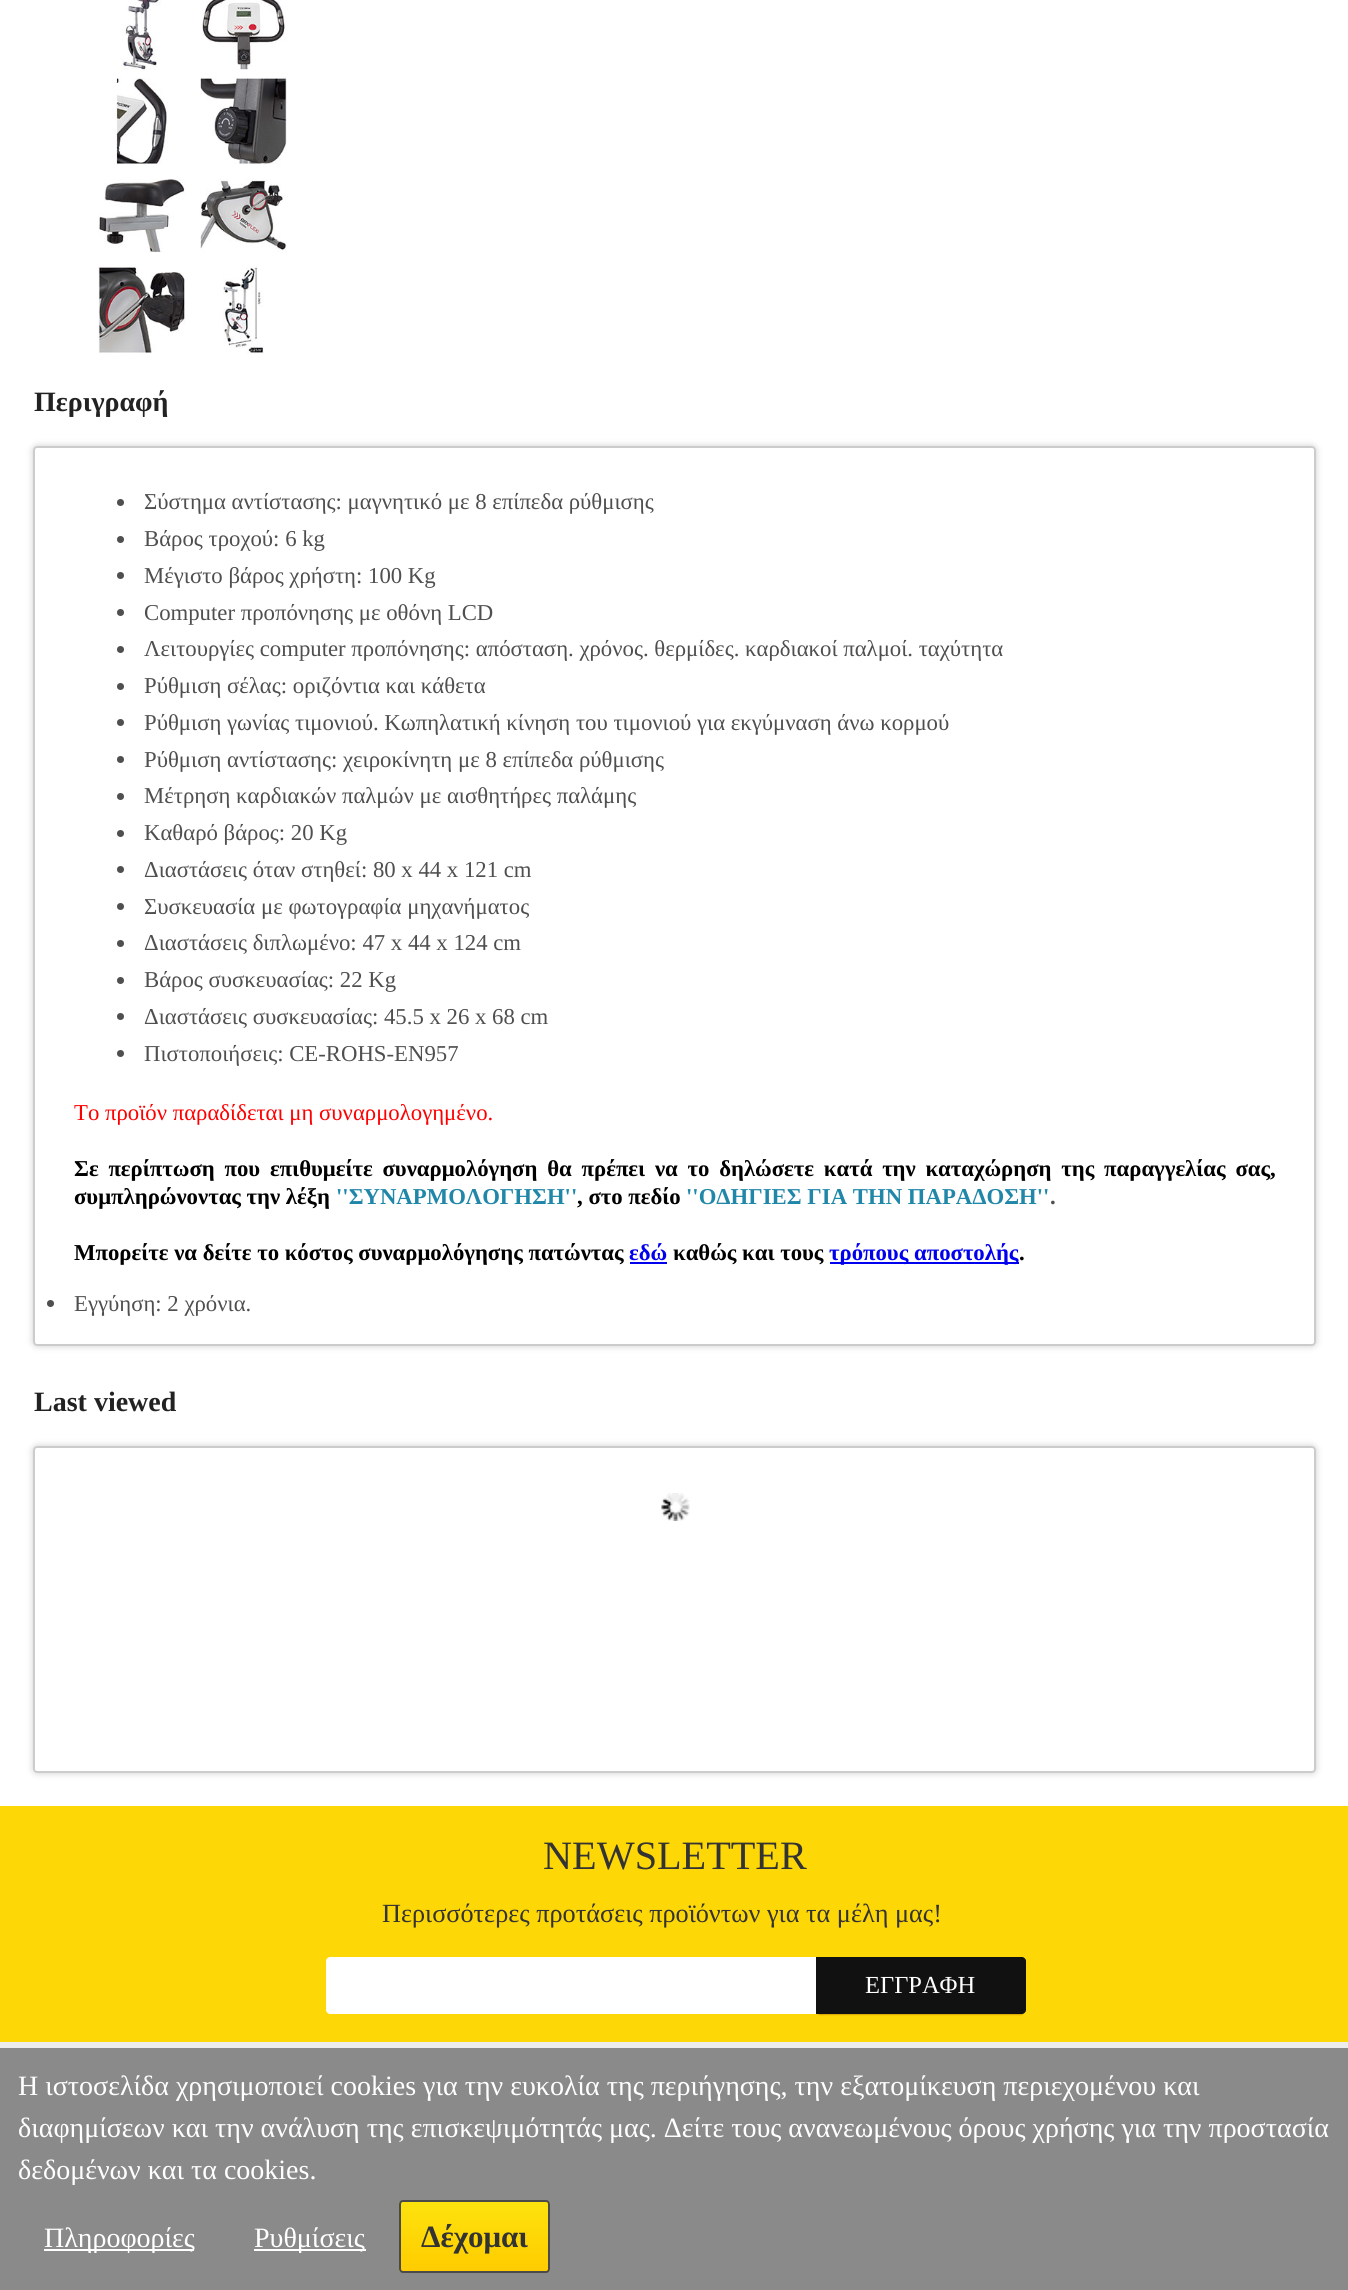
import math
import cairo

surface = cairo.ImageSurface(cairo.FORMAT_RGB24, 1348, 2290)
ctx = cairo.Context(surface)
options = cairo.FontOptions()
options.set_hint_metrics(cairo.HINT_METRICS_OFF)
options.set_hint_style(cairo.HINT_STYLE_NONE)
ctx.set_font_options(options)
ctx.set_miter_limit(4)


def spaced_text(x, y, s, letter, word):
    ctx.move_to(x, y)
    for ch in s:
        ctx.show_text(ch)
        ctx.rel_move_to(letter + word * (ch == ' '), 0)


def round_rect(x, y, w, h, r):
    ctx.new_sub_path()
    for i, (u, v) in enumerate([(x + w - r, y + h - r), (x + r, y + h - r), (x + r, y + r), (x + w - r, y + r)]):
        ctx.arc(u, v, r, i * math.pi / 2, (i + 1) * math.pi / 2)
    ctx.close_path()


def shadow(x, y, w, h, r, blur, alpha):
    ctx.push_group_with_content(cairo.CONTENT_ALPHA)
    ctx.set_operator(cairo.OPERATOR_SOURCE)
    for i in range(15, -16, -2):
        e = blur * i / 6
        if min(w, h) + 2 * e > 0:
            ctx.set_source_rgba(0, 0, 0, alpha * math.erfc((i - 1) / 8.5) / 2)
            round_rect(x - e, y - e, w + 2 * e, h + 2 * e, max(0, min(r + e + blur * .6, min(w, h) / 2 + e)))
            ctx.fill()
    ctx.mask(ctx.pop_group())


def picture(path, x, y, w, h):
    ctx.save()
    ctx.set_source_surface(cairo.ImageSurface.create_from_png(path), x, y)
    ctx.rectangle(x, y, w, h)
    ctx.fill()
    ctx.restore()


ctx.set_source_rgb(1, 1, 1)
ctx.paint()
picture("img1.png", 121, 0, 40, 70)
picture("img2.png", 202, 0, 84, 70)
picture("img3.png", 115, 78, 53, 87)
picture("img4.png", 200, 77, 87, 88)
picture("img5.png", 98, 179, 88, 74)
picture("img6.png", 199, 178, 88, 75)
picture("img7.png", 98, 266, 88, 87)
picture("img8.png", 223, 266, 41, 88)
ctx.select_font_face("Liberation Serif", cairo.FONT_SLANT_NORMAL, cairo.FONT_WEIGHT_BOLD)
ctx.set_font_size(28)
ctx.set_source_rgb(0.133, 0.133, 0.133)
ctx.move_to(34, 411)
ctx.show_text("Περιγραφή")
ctx.save()
ctx.set_fill_rule(cairo.FILL_RULE_EVEN_ODD)
ctx.new_path()
ctx.move_to(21, 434)
ctx.line_to(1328, 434)
ctx.line_to(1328, 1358)
ctx.line_to(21, 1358)
ctx.close_path()
ctx.move_to(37, 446)
ctx.line_to(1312, 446)
ctx.curve_to(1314, 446, 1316, 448, 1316, 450)
ctx.line_to(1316, 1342)
ctx.curve_to(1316, 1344, 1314, 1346, 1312, 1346)
ctx.line_to(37, 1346)
ctx.curve_to(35, 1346, 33, 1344, 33, 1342)
ctx.line_to(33, 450)
ctx.curve_to(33, 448, 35, 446, 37, 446)
ctx.close_path()
ctx.clip()
ctx.set_source_rgb(0, 0, 0)
shadow(33, 446, 1283, 900, 4, 3.5, 0.2)
ctx.restore()
round_rect(34, 447, 1281, 898, 3)
ctx.set_source_rgb(0.8, 0.8, 0.8)
ctx.stroke()
ctx.set_source_rgb(0.31, 0.31, 0.31)
ctx.arc(120.5, 502.5, 3.5, 0, 2 * math.pi)
ctx.fill()
ctx.select_font_face("Liberation Serif")
ctx.set_font_size(22.75)
ctx.move_to(144, 509)
ctx.show_text("Σύστημα αντίστασης: μαγνητικό με 8 επίπεδα ρύθμισης")
ctx.new_path()
ctx.arc(120.5, 539.5, 3.5, 0, 2 * math.pi)
ctx.fill()
ctx.move_to(144, 546)
ctx.show_text("Βάρος τροχού: 6 kg")
ctx.new_path()
ctx.arc(120.5, 575.5, 3.5, 0, 2 * math.pi)
ctx.fill()
ctx.move_to(144, 583)
ctx.show_text("Μέγιστο βάρος χρήστη: 100 Kg")
ctx.new_path()
ctx.arc(120.5, 612.5, 3.5, 0, 2 * math.pi)
ctx.fill()
ctx.move_to(144, 620)
ctx.show_text("Computer προπόνησης με οθόνη LCD")
ctx.new_path()
ctx.arc(120.5, 649.5, 3.5, 0, 2 * math.pi)
ctx.fill()
ctx.move_to(144, 656)
ctx.show_text("Λειτουργίες computer προπόνησης: απόσταση. χρόνος. θερμίδες. καρδιακοί παλμοί. ταχύτητα")
ctx.new_path()
ctx.arc(120.5, 686.5, 3.5, 0, 2 * math.pi)
ctx.fill()
ctx.move_to(144, 693)
ctx.show_text("Ρύθμιση σέλας: οριζόντια και κάθετα")
ctx.new_path()
ctx.arc(120.5, 722.5, 3.5, 0, 2 * math.pi)
ctx.fill()
ctx.move_to(144, 730)
ctx.show_text("Ρύθμιση γωνίας τιμονιού. Κωπηλατική κίνηση του τιμονιού για εκγύμναση άνω κορμού")
ctx.new_path()
ctx.arc(120.5, 759.5, 3.5, 0, 2 * math.pi)
ctx.fill()
ctx.move_to(144, 767)
ctx.show_text("Ρύθμιση αντίστασης: χειροκίνητη με 8 επίπεδα ρύθμισης")
ctx.new_path()
ctx.arc(120.5, 796.5, 3.5, 0, 2 * math.pi)
ctx.fill()
ctx.move_to(144, 803)
ctx.show_text("Μέτρηση καρδιακών παλμών με αισθητήρες παλάμης")
ctx.new_path()
ctx.arc(120.5, 833.5, 3.5, 0, 2 * math.pi)
ctx.fill()
ctx.move_to(144, 840)
ctx.show_text("Καθαρό βάρος: 20 Kg")
ctx.new_path()
ctx.arc(120.5, 869.5, 3.5, 0, 2 * math.pi)
ctx.fill()
ctx.move_to(144, 877)
ctx.show_text("Διαστάσεις όταν στηθεί: 80 x 44 x 121 cm")
ctx.new_path()
ctx.arc(120.5, 906.5, 3.5, 0, 2 * math.pi)
ctx.fill()
ctx.move_to(144, 914)
ctx.show_text("Συσκευασία με φωτογραφία μηχανήματος")
ctx.new_path()
ctx.arc(120.5, 943.5, 3.5, 0, 2 * math.pi)
ctx.fill()
ctx.move_to(144, 950)
ctx.show_text("Διαστάσεις διπλωμένο: 47 x 44 x 124 cm")
ctx.new_path()
ctx.arc(120.5, 980.5, 3.5, 0, 2 * math.pi)
ctx.fill()
ctx.move_to(144, 987)
ctx.show_text("Βάρος συσκευασίας: 22 Kg")
ctx.new_path()
ctx.arc(120.5, 1016.5, 3.5, 0, 2 * math.pi)
ctx.fill()
ctx.move_to(144, 1024)
ctx.show_text("Διαστάσεις συσκευασίας: 45.5 x 26 x 68 cm")
ctx.new_path()
ctx.arc(120.5, 1053.5, 3.5, 0, 2 * math.pi)
ctx.fill()
ctx.move_to(144, 1061)
ctx.show_text("Πιστοποιήσεις: CE-ROHS-EN957")
ctx.set_source_rgb(1, 0, 0)
ctx.move_to(74, 1120)
ctx.show_text("Το προϊόν παραδίδεται μη συναρμολογημένο.")
ctx.select_font_face("Liberation Serif", cairo.FONT_SLANT_NORMAL, cairo.FONT_WEIGHT_BOLD)
ctx.set_source_rgb(0, 0, 0)
spaced_text(74, 1176, "Σε περίπτωση που επιθυμείτε συναρμολόγηση θα πρέπει να το δηλώσετε κατά την καταχώρηση της παραγγελίας σας,", 0, 4.1)
ctx.move_to(74, 1204)
ctx.show_text("συμπληρώνοντας την λέξη")
ctx.set_source_rgb(0.125, 0.529, 0.663)
ctx.move_to(336, 1204)
ctx.show_text("''ΣΥΝΑΡΜΟΛΟΓΗΣΗ''")
ctx.set_source_rgb(0, 0, 0)
ctx.move_to(577, 1204)
ctx.show_text(", στο πεδίο")
ctx.set_source_rgb(0.125, 0.529, 0.663)
ctx.move_to(686, 1204)
ctx.show_text("''ΟΔΗΓΙΕΣ ΓΙΑ ΤΗΝ ΠΑΡΑΔΟΣΗ''")
ctx.set_source_rgb(0.31, 0.31, 0.31)
ctx.move_to(1050, 1204)
ctx.show_text(".")
ctx.set_source_rgb(0, 0, 0)
ctx.move_to(74, 1260)
ctx.show_text("Μπορείτε να δείτε το κόστος συναρμολόγησης πατώντας")
ctx.set_source_rgb(0, 0, 0.933)
ctx.move_to(629, 1260)
ctx.show_text("εδώ")
ctx.rectangle(630, 1262, 37, 2)
ctx.fill()
ctx.set_source_rgb(0, 0, 0)
ctx.move_to(673, 1260)
ctx.show_text("καθώς και τους")
ctx.set_source_rgb(0, 0, 0.933)
ctx.rectangle(830, 1262, 189, 2)
ctx.fill()
ctx.move_to(829, 1260)
ctx.show_text("τρόπους αποστολής")
ctx.set_source_rgb(0, 0, 0)
ctx.move_to(1019, 1260)
ctx.show_text(".")
ctx.set_source_rgb(0.31, 0.31, 0.31)
ctx.new_path()
ctx.arc(50.5, 1303.5, 3.5, 0, 2 * math.pi)
ctx.fill()
ctx.select_font_face("Liberation Serif")
ctx.move_to(74, 1311)
ctx.show_text("Εγγύηση: 2 χρόνια.")
ctx.select_font_face("Liberation Serif", cairo.FONT_SLANT_NORMAL, cairo.FONT_WEIGHT_BOLD)
ctx.set_font_size(28)
ctx.set_source_rgb(0.133, 0.133, 0.133)
ctx.move_to(34, 1411)
ctx.show_text("Last viewed")
ctx.save()
ctx.set_fill_rule(cairo.FILL_RULE_EVEN_ODD)
ctx.new_path()
ctx.move_to(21, 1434)
ctx.line_to(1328, 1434)
ctx.line_to(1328, 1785)
ctx.line_to(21, 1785)
ctx.close_path()
ctx.move_to(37, 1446)
ctx.line_to(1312, 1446)
ctx.curve_to(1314, 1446, 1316, 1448, 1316, 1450)
ctx.line_to(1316, 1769)
ctx.curve_to(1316, 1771, 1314, 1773, 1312, 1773)
ctx.line_to(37, 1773)
ctx.curve_to(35, 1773, 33, 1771, 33, 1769)
ctx.line_to(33, 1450)
ctx.curve_to(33, 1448, 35, 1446, 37, 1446)
ctx.close_path()
ctx.clip()
ctx.set_source_rgb(0, 0, 0)
shadow(33, 1446, 1283, 327, 4, 3.5, 0.2)
ctx.restore()
round_rect(34, 1447, 1281, 325, 3)
ctx.set_source_rgb(0.8, 0.8, 0.8)
ctx.stroke()
picture("img9.png", 661, 1493, 29, 28)
ctx.set_source_rgb(0.996, 0.843, 0.027)
ctx.rectangle(0, 1806, 1348, 236)
ctx.fill()
ctx.select_font_face("Liberation Serif")
ctx.set_font_size(40.25)
ctx.set_source_rgb(0.2, 0.2, 0.2)
ctx.move_to(543, 1869)
ctx.show_text("NEWSLETTER")
ctx.set_font_size(26.25)
ctx.move_to(382, 1922)
ctx.show_text("Περισσότερες προτάσεις προϊόντων για τα μέλη μας!")
ctx.set_source_rgb(1, 1, 1)
ctx.new_path()
ctx.move_to(330, 1957)
ctx.line_to(816, 1957)
ctx.line_to(816, 2014)
ctx.line_to(330, 2014)
ctx.curve_to(328, 2014, 326, 2012, 326, 2010)
ctx.line_to(326, 1961)
ctx.curve_to(326, 1959, 328, 1957, 330, 1957)
ctx.close_path()
ctx.fill()
ctx.set_source_rgb(0.616, 0.357, 0.004)
shadow(819, 1964, 203, 50, 0, 1, 1)
ctx.set_source_rgb(0.067, 0.067, 0.067)
ctx.new_path()
ctx.move_to(816, 1957)
ctx.line_to(1022, 1957)
ctx.curve_to(1024, 1957, 1026, 1959, 1026, 1961)
ctx.line_to(1026, 2010)
ctx.curve_to(1026, 2012, 1024, 2014, 1022, 2014)
ctx.line_to(816, 2014)
ctx.close_path()
ctx.fill()
ctx.set_font_size(24.5)
ctx.set_source_rgb(1, 1, 1)
ctx.move_to(865, 1993)
ctx.show_text("ΕΓΓΡΑΦΗ")
ctx.set_source_rgb(0.922, 0.922, 0.922)
ctx.rectangle(0, 2042, 1348, 6)
ctx.fill()
ctx.set_source_rgb(0.541, 0.541, 0.541)
ctx.rectangle(0, 2048, 1348, 242)
ctx.fill()
ctx.set_font_size(28)
ctx.set_source_rgb(1, 1, 1)
ctx.move_to(18, 2095)
ctx.show_text("Η ιστοσελίδα χρησιμοποιεί cookies για την ευκολία της περιήγησης, την εξατομίκευση περιεχομένου και")
ctx.move_to(18, 2137)
ctx.show_text("διαφημίσεων και την ανάλυση της επισκεψιμότητάς μας. Δείτε τους ανανεωμένους όρους χρήσης για την προστασία")
ctx.move_to(18, 2179)
ctx.show_text("δεδομένων και τα cookies.")
ctx.rectangle(44, 2249, 150, 2)
ctx.fill()
ctx.move_to(44, 2247)
ctx.show_text("Πληροφορίες")
ctx.rectangle(254, 2249, 112, 2)
ctx.fill()
ctx.move_to(254, 2247)
ctx.show_text("Ρυθμίσεις")
ctx.save()
round_rect(399, 2200, 151, 73, 4)
ctx.clip()
gradient = cairo.LinearGradient(474, 2272, 474, 2202)
gradient.add_color_stop_rgba(0, 1, 0.8, 0, 1)
gradient.add_color_stop_rgba(1, 0.992, 0.886, 0.051, 1)
ctx.set_source(gradient)
ctx.rectangle(399, 2202, 151, 70)
ctx.fill()
ctx.restore()
round_rect(400, 2201, 149, 71, 3)
ctx.set_source_rgb(0.29, 0.29, 0.29)
ctx.stroke()
ctx.select_font_face("Liberation Serif", cairo.FONT_SLANT_NORMAL, cairo.FONT_WEIGHT_BOLD)
ctx.set_font_size(31)
ctx.set_source_rgb(0.2, 0.2, 0.2)
ctx.move_to(421, 2247)
ctx.show_text("Δέχομαι")
surface.write_to_png("page.png")
